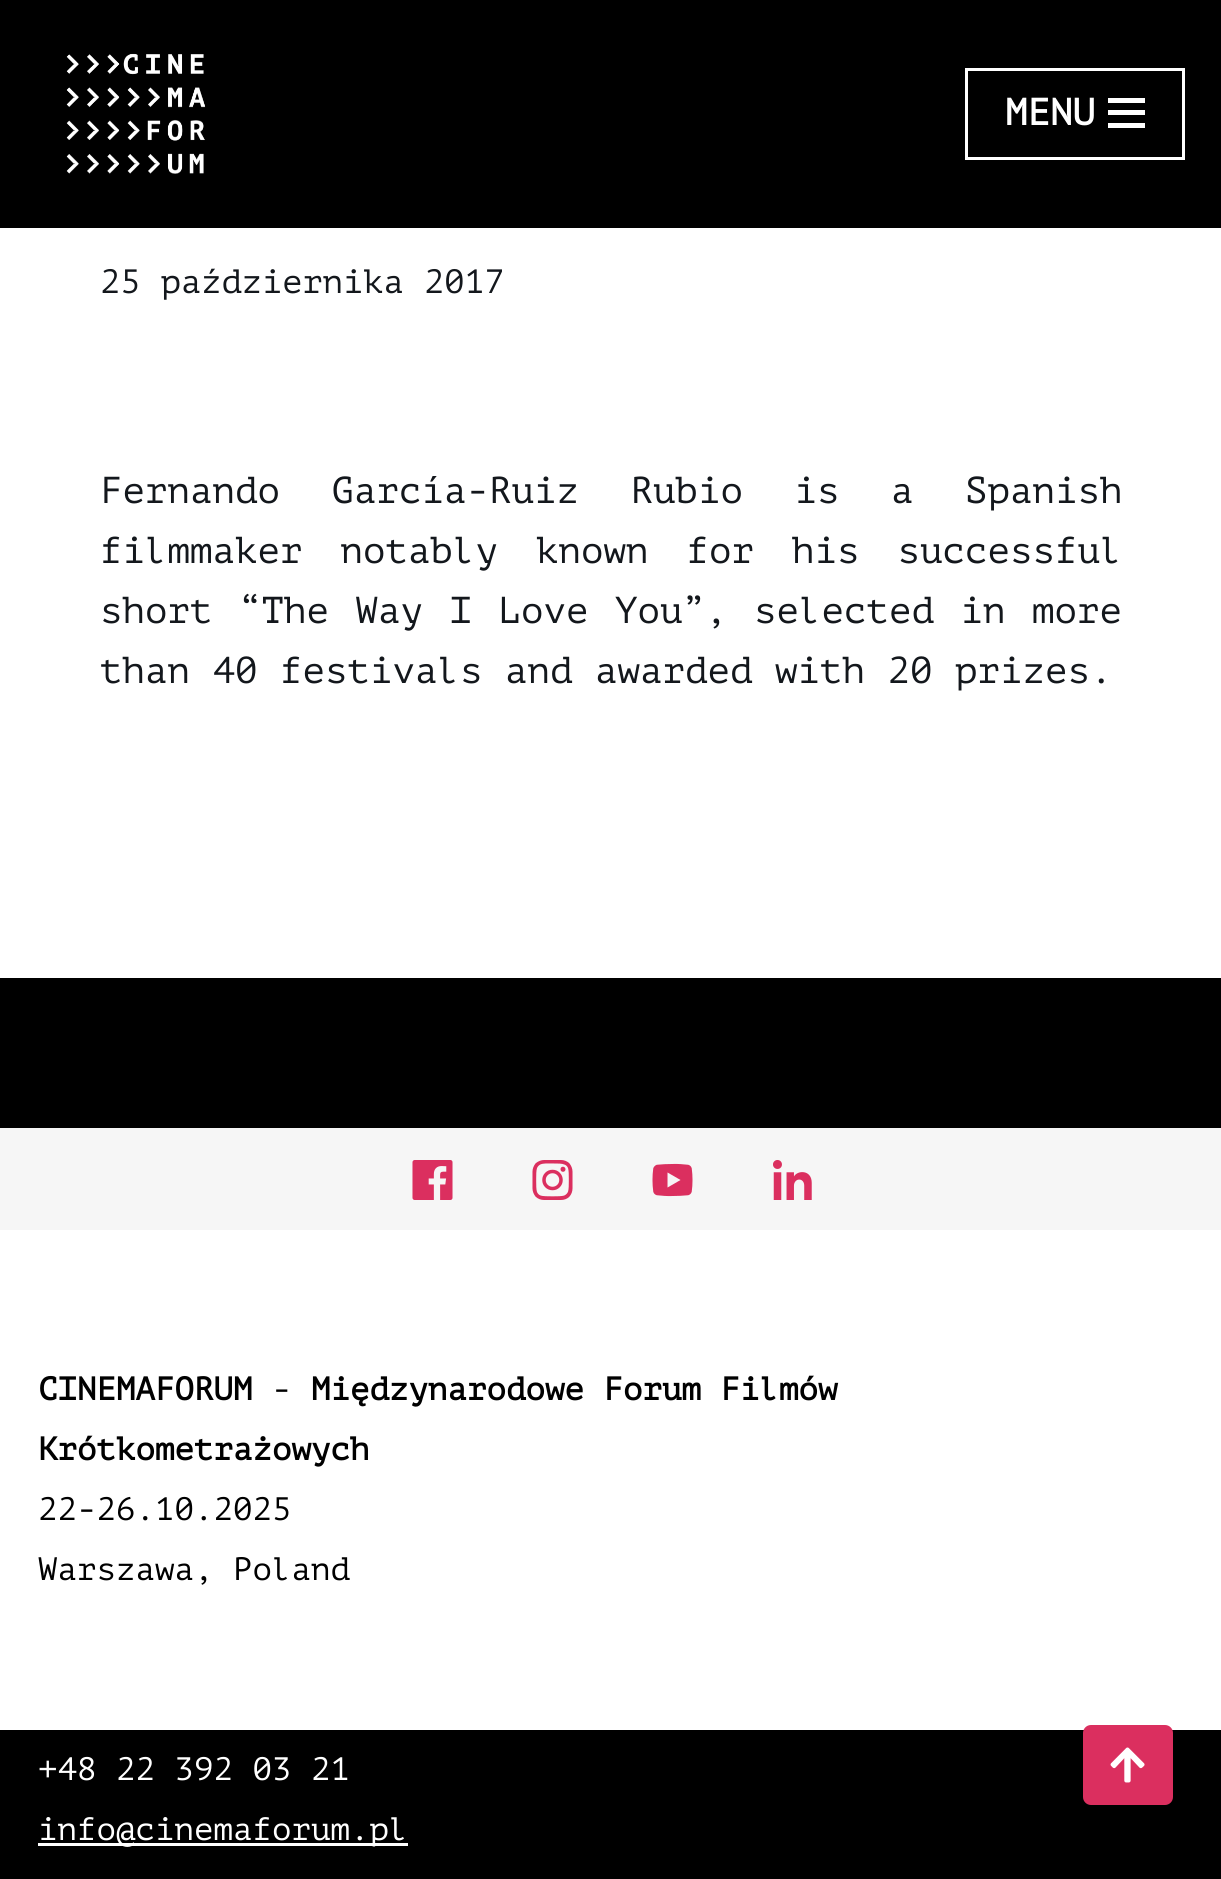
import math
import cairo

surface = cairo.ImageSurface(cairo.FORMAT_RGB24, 1221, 1879)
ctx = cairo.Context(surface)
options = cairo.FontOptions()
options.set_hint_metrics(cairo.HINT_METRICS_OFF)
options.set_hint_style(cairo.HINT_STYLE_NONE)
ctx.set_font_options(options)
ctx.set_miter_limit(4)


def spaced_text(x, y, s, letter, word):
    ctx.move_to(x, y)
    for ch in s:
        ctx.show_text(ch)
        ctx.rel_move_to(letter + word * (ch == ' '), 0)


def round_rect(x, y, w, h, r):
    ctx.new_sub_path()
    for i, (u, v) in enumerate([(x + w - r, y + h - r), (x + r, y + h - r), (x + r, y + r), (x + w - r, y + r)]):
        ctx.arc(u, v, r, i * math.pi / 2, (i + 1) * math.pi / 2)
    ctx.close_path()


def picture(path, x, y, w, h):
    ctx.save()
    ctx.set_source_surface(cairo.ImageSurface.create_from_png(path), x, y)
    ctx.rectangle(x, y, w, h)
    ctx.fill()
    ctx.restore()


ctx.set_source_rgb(0, 0, 0)
ctx.paint()
picture("img1.png", 66, 53, 140, 121)
ctx.rectangle(966.5, 69.5, 217, 89)
ctx.set_source_rgb(1, 1, 1)
ctx.set_line_width(3)
ctx.stroke()
ctx.select_font_face("PT Mono", cairo.FONT_SLANT_NORMAL, cairo.FONT_WEIGHT_BOLD)
ctx.set_font_size(37.5)
ctx.move_to(1005, 125)
ctx.show_text("MENU")
ctx.rectangle(1108, 98, 37, 5)
ctx.fill()
ctx.rectangle(1108, 110, 37, 5)
ctx.fill()
ctx.rectangle(1108, 123, 37, 5)
ctx.fill()
ctx.rectangle(0, 228, 1221, 750)
ctx.fill()
ctx.select_font_face("PT Mono")
ctx.set_font_size(33.75)
ctx.set_source_rgb(0.078, 0.09, 0.11)
ctx.move_to(100, 293)
ctx.show_text("25 października 2017")
ctx.set_font_size(37.5)
spaced_text(100, 503, "Fernando García-Ruiz Rubio is a Spanish", 0, 29)
spaced_text(100, 563, "filmmaker notably known for his successful", 0, 15.5)
spaced_text(100, 623, "short “The Way I Love You”, selected in more", 0, 4)
ctx.move_to(100, 683)
ctx.show_text("than 40 festivals and awarded with 20 prizes.")
ctx.set_source_rgb(0.961, 0.961, 0.961)
ctx.rectangle(0, 1128, 1221, 102)
ctx.fill()
picture("img2.png", 412, 1160, 41, 40)
picture("img3.png", 532, 1160, 41, 40)
picture("img4.png", 652, 1163, 41, 34)
picture("img5.png", 773, 1160, 39, 40)
ctx.set_source_rgb(1, 1, 1)
ctx.rectangle(0, 1230, 1221, 500)
ctx.fill()
ctx.select_font_face("PT Mono", cairo.FONT_SLANT_NORMAL, cairo.FONT_WEIGHT_BOLD)
ctx.set_font_size(32.5)
ctx.set_source_rgb(0, 0, 0)
ctx.move_to(38, 1400)
ctx.show_text("CINEMAFORUM")
ctx.select_font_face("PT Mono")
ctx.move_to(272, 1400)
ctx.show_text("-")
ctx.select_font_face("PT Mono", cairo.FONT_SLANT_NORMAL, cairo.FONT_WEIGHT_BOLD)
ctx.move_to(311, 1400)
ctx.show_text("Międzynarodowe Forum Filmów")
ctx.move_to(38, 1460)
ctx.show_text("Krótkometrażowych")
ctx.select_font_face("PT Mono")
ctx.move_to(38, 1520)
ctx.show_text("22-26.10.2025")
ctx.move_to(38, 1580)
ctx.show_text("Warszawa, Poland")
ctx.set_source_rgb(1, 1, 1)
ctx.move_to(38, 1780)
ctx.show_text("+48 22 392 03 21")
ctx.rectangle(38, 1843, 370, 3)
ctx.fill()
ctx.move_to(38, 1840)
ctx.show_text("info@cinemaforum.pl")
ctx.set_source_rgb(0.859, 0.184, 0.373)
round_rect(1083, 1725, 90, 80, 8)
ctx.fill()
picture("img6.png", 1110, 1747, 35, 36)
surface.write_to_png("page.png")
